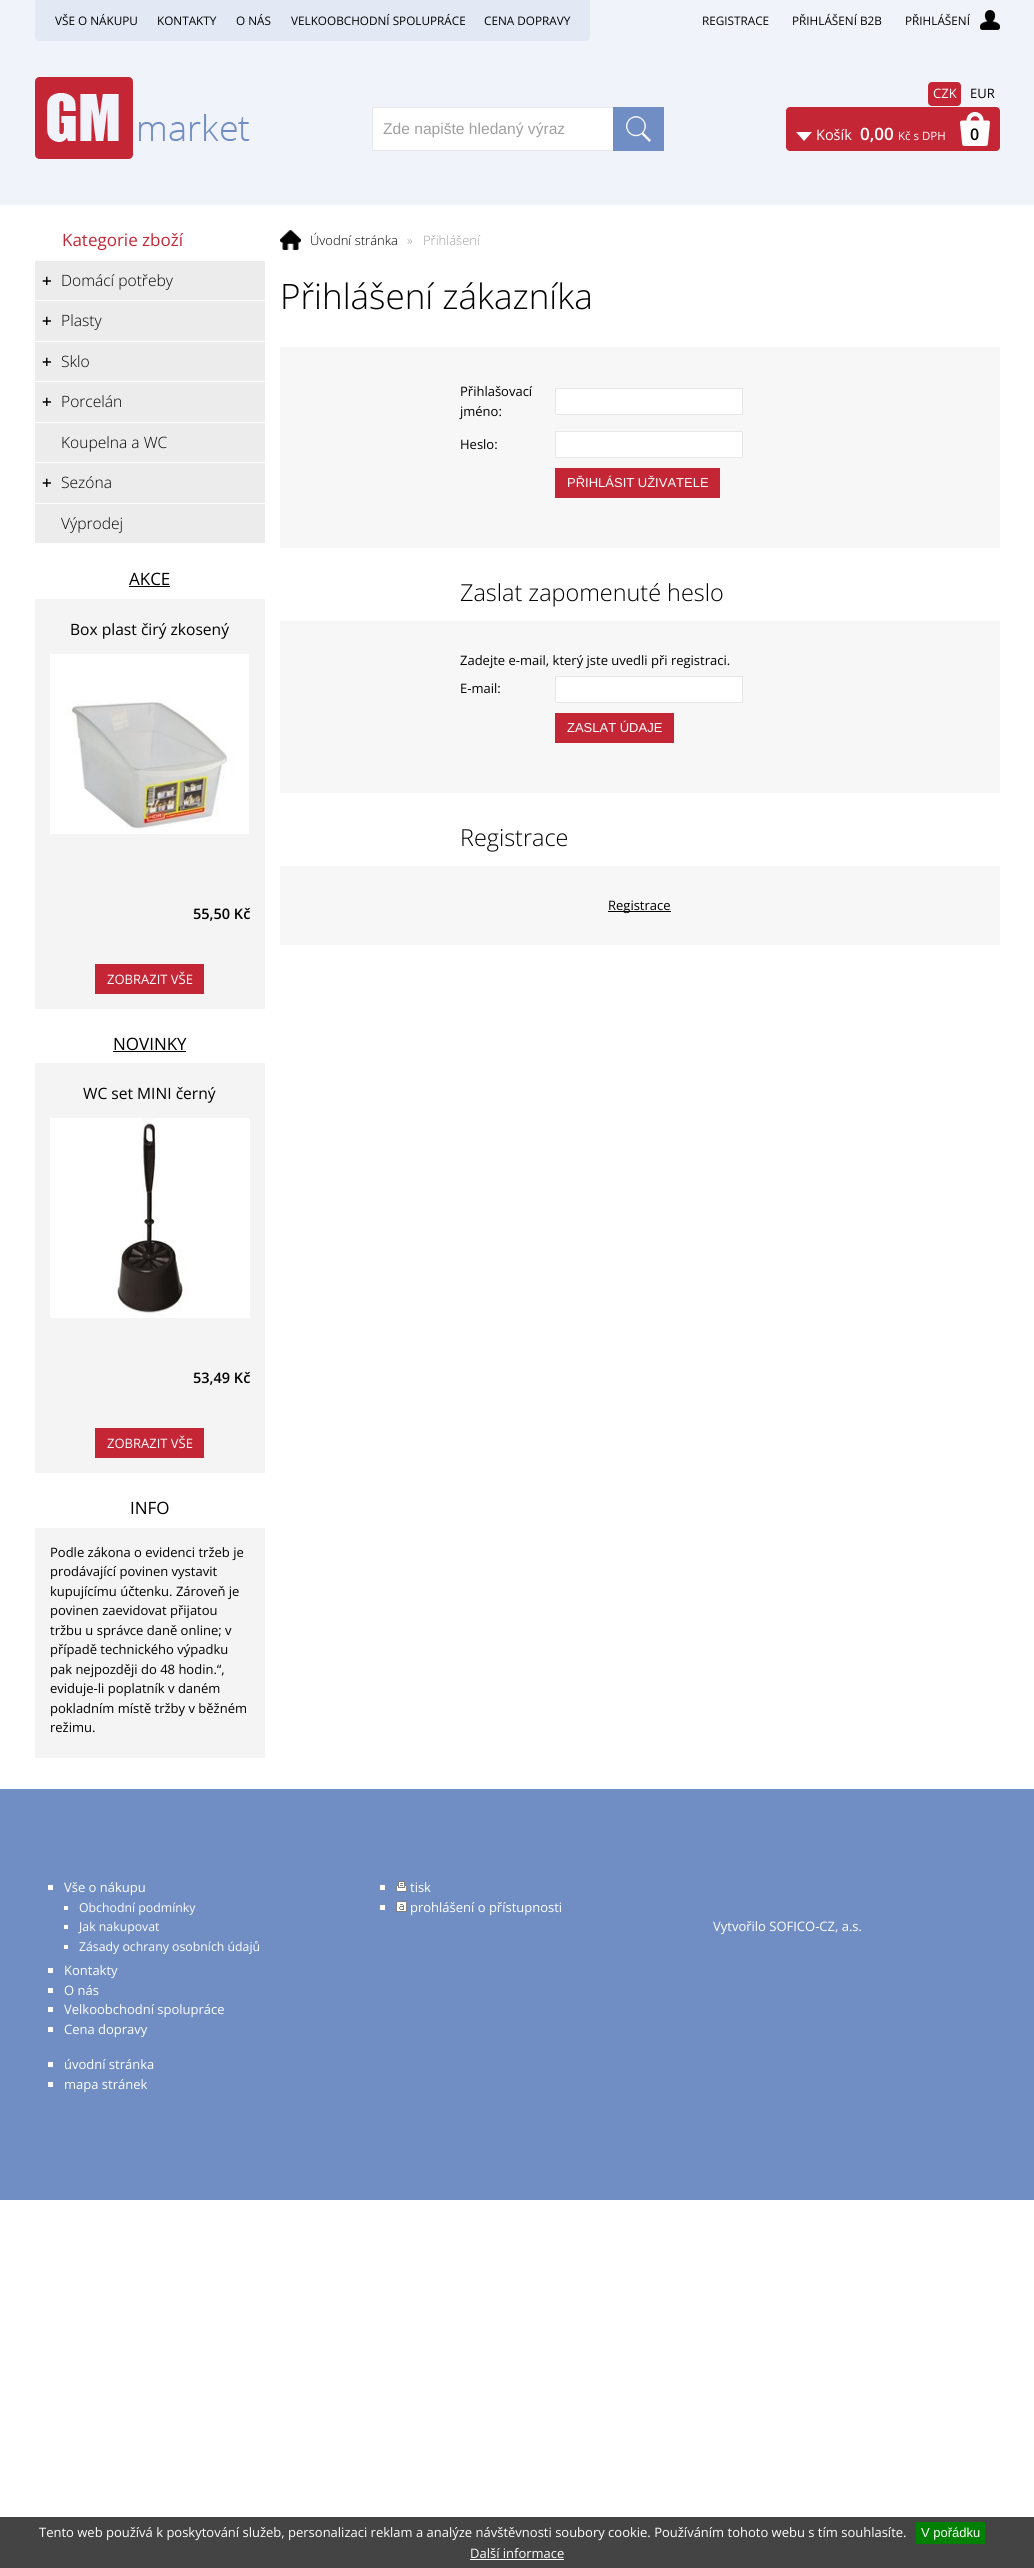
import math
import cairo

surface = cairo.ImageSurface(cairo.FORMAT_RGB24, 1034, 2568)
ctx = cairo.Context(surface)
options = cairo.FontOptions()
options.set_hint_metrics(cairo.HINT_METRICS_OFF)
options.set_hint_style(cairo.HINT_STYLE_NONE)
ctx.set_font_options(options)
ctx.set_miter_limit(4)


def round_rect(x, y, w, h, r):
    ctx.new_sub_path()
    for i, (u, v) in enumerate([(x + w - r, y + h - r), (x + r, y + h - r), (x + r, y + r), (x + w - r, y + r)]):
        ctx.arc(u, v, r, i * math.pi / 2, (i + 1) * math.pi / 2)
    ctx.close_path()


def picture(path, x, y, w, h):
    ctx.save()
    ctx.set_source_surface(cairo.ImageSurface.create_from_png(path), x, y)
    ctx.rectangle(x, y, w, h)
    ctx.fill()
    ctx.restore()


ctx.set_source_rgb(1, 1, 1)
ctx.paint()
ctx.set_source_rgb(0.941, 0.953, 0.976)
ctx.rectangle(0, 0, 1034, 205)
ctx.fill()
ctx.set_source_rgb(0.89, 0.914, 0.957)
ctx.new_path()
ctx.move_to(35, 0)
ctx.line_to(590, 0)
ctx.line_to(590, 37)
ctx.curve_to(590, 39, 588, 41, 586, 41)
ctx.line_to(39, 41)
ctx.curve_to(37, 41, 35, 39, 35, 37)
ctx.close_path()
ctx.fill()
ctx.select_font_face("Open Sans")
ctx.set_font_size(11.75)
ctx.set_source_rgb(0, 0, 0)
ctx.move_to(55, 25)
ctx.show_text("VŠE O NÁKUPU")
ctx.move_to(157, 25)
ctx.show_text("KONTAKTY")
ctx.move_to(236, 25)
ctx.show_text("O NÁS")
ctx.move_to(291, 25)
ctx.show_text("VELKOOBCHODNÍ SPOLUPRÁCE")
ctx.move_to(484, 25)
ctx.show_text("CENA DOPRAVY")
ctx.move_to(702, 25)
ctx.show_text("REGISTRACE")
ctx.move_to(792, 25)
ctx.show_text("PŘIHLÁŠENÍ B2B")
picture("img1.png", 980, 10, 20, 20)
ctx.move_to(905, 25)
ctx.show_text("PŘIHLÁŠENÍ")
picture("img2.png", 35, 77, 215, 82)
ctx.set_source_rgb(0.769, 0.149, 0.208)
round_rect(928, 82, 33, 24, 4)
ctx.fill()
ctx.set_font_size(13)
ctx.set_source_rgb(1, 1, 1)
ctx.move_to(933, 98)
ctx.show_text("CZK")
ctx.set_source_rgb(0, 0, 0)
ctx.move_to(970, 98)
ctx.show_text("EUR")
ctx.set_source_rgb(1, 1, 1)
ctx.rectangle(373, 108, 240, 42)
ctx.fill()
ctx.set_source_rgb(0.91, 0.91, 0.91)
ctx.rectangle(372, 107, 241, 1)
ctx.fill()
ctx.rectangle(372, 150, 241, 1)
ctx.fill()
ctx.rectangle(372, 107, 1, 44)
ctx.fill()
ctx.select_font_face("Liberation Sans")
ctx.set_font_size(15.6)
ctx.set_source_rgb(0.627, 0.627, 0.627)
ctx.move_to(383, 134)
ctx.show_text("Zde napište hledaný výraz")
ctx.set_source_rgb(0.439, 0.557, 0.769)
ctx.rectangle(613, 107, 51, 1)
ctx.fill()
ctx.rectangle(663, 107, 1, 44)
ctx.fill()
ctx.rectangle(613, 150, 51, 1)
ctx.fill()
ctx.rectangle(613, 108, 50, 42)
ctx.fill()
picture("img3.png", 626, 116, 25, 26)
ctx.set_source_rgb(0.769, 0.149, 0.208)
round_rect(786, 107, 214, 44, 4)
ctx.fill()
ctx.set_source_rgb(1, 1, 1)
ctx.new_path()
ctx.move_to(796, 132)
ctx.line_to(812, 132)
ctx.line_to(804, 141)
ctx.close_path()
ctx.fill()
ctx.select_font_face("Open Sans")
ctx.set_font_size(14.5)
ctx.move_to(816, 140)
ctx.show_text("Košík")
ctx.select_font_face("Open Sans SemiBold")
ctx.set_font_size(17)
ctx.move_to(860, 140)
ctx.show_text("0,00")
ctx.select_font_face("Open Sans")
ctx.set_font_size(11.5)
ctx.move_to(898, 140)
ctx.show_text("Kč s DPH")
picture("img4.png", 960, 112, 30, 34)
ctx.select_font_face("Open Sans SemiBold")
ctx.set_font_size(16)
ctx.set_source_rgb(0, 0, 0)
ctx.move_to(970, 140)
ctx.show_text("0")
ctx.select_font_face("Open Sans")
ctx.set_font_size(17)
ctx.set_source_rgb(0.769, 0.149, 0.208)
ctx.move_to(62, 246)
ctx.show_text("Kategorie zboží")
ctx.set_source_rgb(0.922, 0.922, 0.922)
ctx.rectangle(35, 261, 230, 282)
ctx.fill()
picture("img5.png", 42, 276, 9, 9)
ctx.set_source_rgb(1, 1, 1)
ctx.rectangle(35, 300, 230, 1)
ctx.fill()
ctx.select_font_face("Open Sans Light")
ctx.set_font_size(15.6)
ctx.set_source_rgb(0, 0, 0)
ctx.move_to(61, 286)
ctx.show_text("Domácí potřeby")
picture("img5.png", 42, 316, 9, 9)
ctx.set_source_rgb(1, 1, 1)
ctx.rectangle(35, 341, 230, 1)
ctx.fill()
ctx.set_source_rgb(0, 0, 0)
ctx.move_to(61, 326)
ctx.show_text("Plasty")
picture("img5.png", 42, 357, 9, 9)
ctx.set_source_rgb(1, 1, 1)
ctx.rectangle(35, 381, 230, 1)
ctx.fill()
ctx.set_source_rgb(0, 0, 0)
ctx.move_to(61, 367)
ctx.show_text("Sklo")
picture("img5.png", 42, 397, 9, 9)
ctx.set_source_rgb(1, 1, 1)
ctx.rectangle(35, 422, 230, 1)
ctx.fill()
ctx.set_source_rgb(0, 0, 0)
ctx.move_to(61, 407)
ctx.show_text("Porcelán")
ctx.set_source_rgb(1, 1, 1)
ctx.rectangle(35, 462, 230, 1)
ctx.fill()
ctx.set_source_rgb(0, 0, 0)
ctx.move_to(61, 448)
ctx.show_text("Koupelna a WC")
picture("img5.png", 42, 478, 9, 9)
ctx.set_source_rgb(1, 1, 1)
ctx.rectangle(35, 503, 230, 1)
ctx.fill()
ctx.set_source_rgb(0, 0, 0)
ctx.move_to(61, 488)
ctx.show_text("Sezóna")
ctx.move_to(61, 529)
ctx.show_text("Výprodej")
ctx.select_font_face("Open Sans")
ctx.set_font_size(17)
ctx.move_to(129, 585)
ctx.show_text("AKCE")
ctx.rectangle(129, 586, 41, 1)
ctx.fill()
ctx.set_source_rgb(0.957, 0.957, 0.957)
ctx.rectangle(35, 599, 230, 410)
ctx.fill()
ctx.set_font_size(15.6)
ctx.set_source_rgb(0, 0, 0)
ctx.move_to(70, 635)
ctx.show_text("Box plast čirý zkosený")
picture("img6.png", 50, 654, 199, 180)
ctx.select_font_face("Open Sans SemiBold")
ctx.set_font_size(14.5)
ctx.move_to(193, 919)
ctx.show_text("55,50 Kč")
ctx.set_source_rgb(0.769, 0.149, 0.208)
ctx.rectangle(95, 964, 109, 30)
ctx.fill()
ctx.select_font_face("Open Sans")
ctx.set_font_size(13)
ctx.set_source_rgb(1, 1, 1)
ctx.move_to(107, 984)
ctx.show_text("ZOBRAZIT VŠE")
ctx.set_font_size(17)
ctx.set_source_rgb(0, 0, 0)
ctx.move_to(113, 1050)
ctx.show_text("NOVINKY")
ctx.rectangle(113, 1051, 73, 1)
ctx.fill()
ctx.set_source_rgb(0.957, 0.957, 0.957)
ctx.rectangle(35, 1063, 230, 410)
ctx.fill()
ctx.set_font_size(15.6)
ctx.set_source_rgb(0, 0, 0)
ctx.move_to(83, 1099)
ctx.show_text("WC set MINI černý")
picture("img7.png", 50, 1118, 200, 200)
ctx.select_font_face("Open Sans SemiBold")
ctx.set_font_size(14.5)
ctx.move_to(193, 1383)
ctx.show_text("53,49 Kč")
ctx.set_source_rgb(0.769, 0.149, 0.208)
ctx.rectangle(95, 1428, 109, 30)
ctx.fill()
ctx.select_font_face("Open Sans")
ctx.set_font_size(13)
ctx.set_source_rgb(1, 1, 1)
ctx.move_to(107, 1448)
ctx.show_text("ZOBRAZIT VŠE")
ctx.set_font_size(17)
ctx.set_source_rgb(0, 0, 0)
ctx.move_to(130, 1514)
ctx.show_text("INFO")
ctx.set_source_rgb(0.957, 0.957, 0.957)
ctx.rectangle(35, 1528, 230, 230)
ctx.fill()
ctx.set_font_size(13)
ctx.set_source_rgb(0, 0, 0)
ctx.move_to(50, 1557)
ctx.show_text("Podle zákona o evidenci tržeb je")
ctx.move_to(50, 1576)
ctx.show_text("prodávající povinen vystavit")
ctx.move_to(50, 1596)
ctx.show_text("kupujícímu účtenku. Zároveň je")
ctx.move_to(50, 1615)
ctx.show_text("povinen zaevidovat přijatou")
ctx.move_to(50, 1635)
ctx.show_text("tržbu u správce daně online; v")
ctx.move_to(50, 1654)
ctx.show_text("případě technického výpadku")
ctx.move_to(50, 1674)
ctx.show_text("pak nejpozději do 48 hodin.“,")
ctx.move_to(50, 1693)
ctx.show_text("eviduje-li poplatník v daném")
ctx.move_to(50, 1713)
ctx.show_text("pokladním místě tržby v běžném")
ctx.move_to(50, 1732)
ctx.show_text("režimu.")
picture("img8.png", 280, 230, 21, 20)
ctx.select_font_face("Open Sans Light")
ctx.move_to(310, 245)
ctx.show_text("Úvodní stránka")
ctx.set_source_rgb(0.627, 0.627, 0.627)
ctx.move_to(407, 245)
ctx.show_text("»")
ctx.move_to(423, 245)
ctx.show_text("Přihlášení")
ctx.set_font_size(35)
ctx.set_source_rgb(0, 0, 0)
ctx.move_to(280, 309)
ctx.show_text("Přihlášení zákazníka")
ctx.set_source_rgb(0.965, 0.965, 0.965)
ctx.rectangle(280, 347, 720, 201)
ctx.fill()
ctx.select_font_face("Open Sans")
ctx.set_font_size(13)
ctx.set_source_rgb(0, 0, 0)
ctx.move_to(460, 396)
ctx.show_text("Přihlašovací")
ctx.move_to(460, 416)
ctx.show_text("jméno:")
ctx.set_source_rgb(1, 1, 1)
ctx.rectangle(555.5, 388.5, 187, 26)
ctx.fill_preserve()
ctx.set_source_rgb(0.91, 0.91, 0.91)
ctx.set_line_width(1)
ctx.stroke()
ctx.set_source_rgb(0, 0, 0)
ctx.move_to(460, 449)
ctx.show_text("Heslo:")
ctx.set_source_rgb(1, 1, 1)
ctx.rectangle(555.5, 431.5, 187, 26)
ctx.fill_preserve()
ctx.set_source_rgb(0.91, 0.91, 0.91)
ctx.stroke()
ctx.set_source_rgb(0.769, 0.149, 0.208)
ctx.rectangle(555, 468, 165, 30)
ctx.fill()
ctx.select_font_face("Liberation Sans")
ctx.set_source_rgb(1, 1, 1)
ctx.move_to(567, 487)
ctx.show_text("PŘIHLÁSIT UŽIVATELE")
ctx.select_font_face("Open Sans Light")
ctx.set_font_size(23.4)
ctx.set_source_rgb(0, 0, 0)
ctx.move_to(460, 601)
ctx.show_text("Zaslat zapomenuté heslo")
ctx.set_source_rgb(0.965, 0.965, 0.965)
ctx.rectangle(280, 621, 720, 172)
ctx.fill()
ctx.select_font_face("Open Sans")
ctx.set_font_size(13)
ctx.set_source_rgb(0, 0, 0)
ctx.move_to(460, 665)
ctx.show_text("Zadejte e-mail, který jste uvedli při registraci.")
ctx.move_to(460, 693)
ctx.show_text("E-mail:")
ctx.set_source_rgb(1, 1, 1)
ctx.rectangle(555.5, 676.5, 187, 26)
ctx.fill_preserve()
ctx.set_source_rgb(0.91, 0.91, 0.91)
ctx.stroke()
ctx.set_source_rgb(0.769, 0.149, 0.208)
ctx.rectangle(555, 713, 119, 30)
ctx.fill()
ctx.select_font_face("Liberation Sans")
ctx.set_source_rgb(1, 1, 1)
ctx.move_to(567, 732)
ctx.show_text("ZASLAT ÚDAJE")
ctx.select_font_face("Open Sans Light")
ctx.set_font_size(23.4)
ctx.set_source_rgb(0, 0, 0)
ctx.move_to(460, 846)
ctx.show_text("Registrace")
ctx.set_source_rgb(0.965, 0.965, 0.965)
ctx.rectangle(280, 866, 720, 79)
ctx.fill()
ctx.set_source_rgb(0, 0, 0)
ctx.rectangle(608, 911, 63, 1)
ctx.fill()
ctx.select_font_face("Open Sans")
ctx.set_font_size(13)
ctx.move_to(608, 910)
ctx.show_text("Registrace")
ctx.set_source_rgb(0.439, 0.557, 0.769)
ctx.rectangle(0, 1789, 1034, 411)
ctx.fill()
ctx.set_source_rgb(1, 1, 1)
ctx.rectangle(48, 1885, 5, 5)
ctx.fill()
ctx.move_to(64, 1892)
ctx.show_text("Vše o nákupu")
ctx.rectangle(64, 1906, 4, 4)
ctx.fill()
ctx.set_font_size(12.3)
ctx.move_to(79, 1912)
ctx.show_text("Obchodní podmínky")
ctx.rectangle(64, 1925, 4, 4)
ctx.fill()
ctx.move_to(79, 1931)
ctx.show_text("Jak nakupovat")
ctx.rectangle(64, 1945, 4, 4)
ctx.fill()
ctx.move_to(79, 1951)
ctx.show_text("Zásady ochrany osobních údajů")
ctx.rectangle(48, 1968, 5, 5)
ctx.fill()
ctx.set_font_size(13)
ctx.move_to(64, 1975)
ctx.show_text("Kontakty")
ctx.rectangle(48, 1988, 5, 5)
ctx.fill()
ctx.move_to(64, 1995)
ctx.show_text("O nás")
ctx.rectangle(48, 2007, 5, 5)
ctx.fill()
ctx.move_to(64, 2014)
ctx.show_text("Velkoobchodní spolupráce")
ctx.rectangle(48, 2027, 5, 5)
ctx.fill()
ctx.move_to(64, 2034)
ctx.show_text("Cena dopravy")
ctx.rectangle(48, 2062, 5, 5)
ctx.fill()
ctx.move_to(64, 2069)
ctx.show_text("úvodní stránka")
ctx.rectangle(48, 2082, 5, 5)
ctx.fill()
ctx.move_to(64, 2089)
ctx.show_text("mapa stránek")
ctx.rectangle(380, 1885, 5, 5)
ctx.fill()
picture("img9.png", 396, 1881, 11, 11)
ctx.move_to(410, 1892)
ctx.show_text("tisk")
ctx.rectangle(380, 1905, 5, 5)
ctx.fill()
picture("img10.png", 396, 1901, 11, 11)
ctx.move_to(410, 1912)
ctx.show_text("prohlášení o přístupnosti")
ctx.move_to(713, 1931)
ctx.show_text("Vytvořilo SOFICO-CZ, a.s.")
ctx.set_source_rgb(0.267, 0.267, 0.267)
ctx.rectangle(0, 2517, 1034, 51)
ctx.fill()
ctx.set_source_rgb(1, 1, 1)
ctx.move_to(39, 2537)
ctx.show_text("Tento web používá k poskytování služeb, personalizaci reklam a analýze návštěvnosti soubory cookie. Používáním tohoto webu s tím souhlasíte.")
ctx.set_source_rgb(0, 0.502, 0)
ctx.rectangle(916, 2522, 69, 22)
ctx.fill()
ctx.select_font_face("Liberation Sans")
ctx.set_source_rgb(1, 1, 1)
ctx.move_to(921, 2537)
ctx.show_text("V pořádku")
ctx.select_font_face("Open Sans")
ctx.move_to(470, 2558)
ctx.show_text("Další informace")
ctx.rectangle(470, 2559, 94, 1)
ctx.fill()
surface.write_to_png("page.png")
